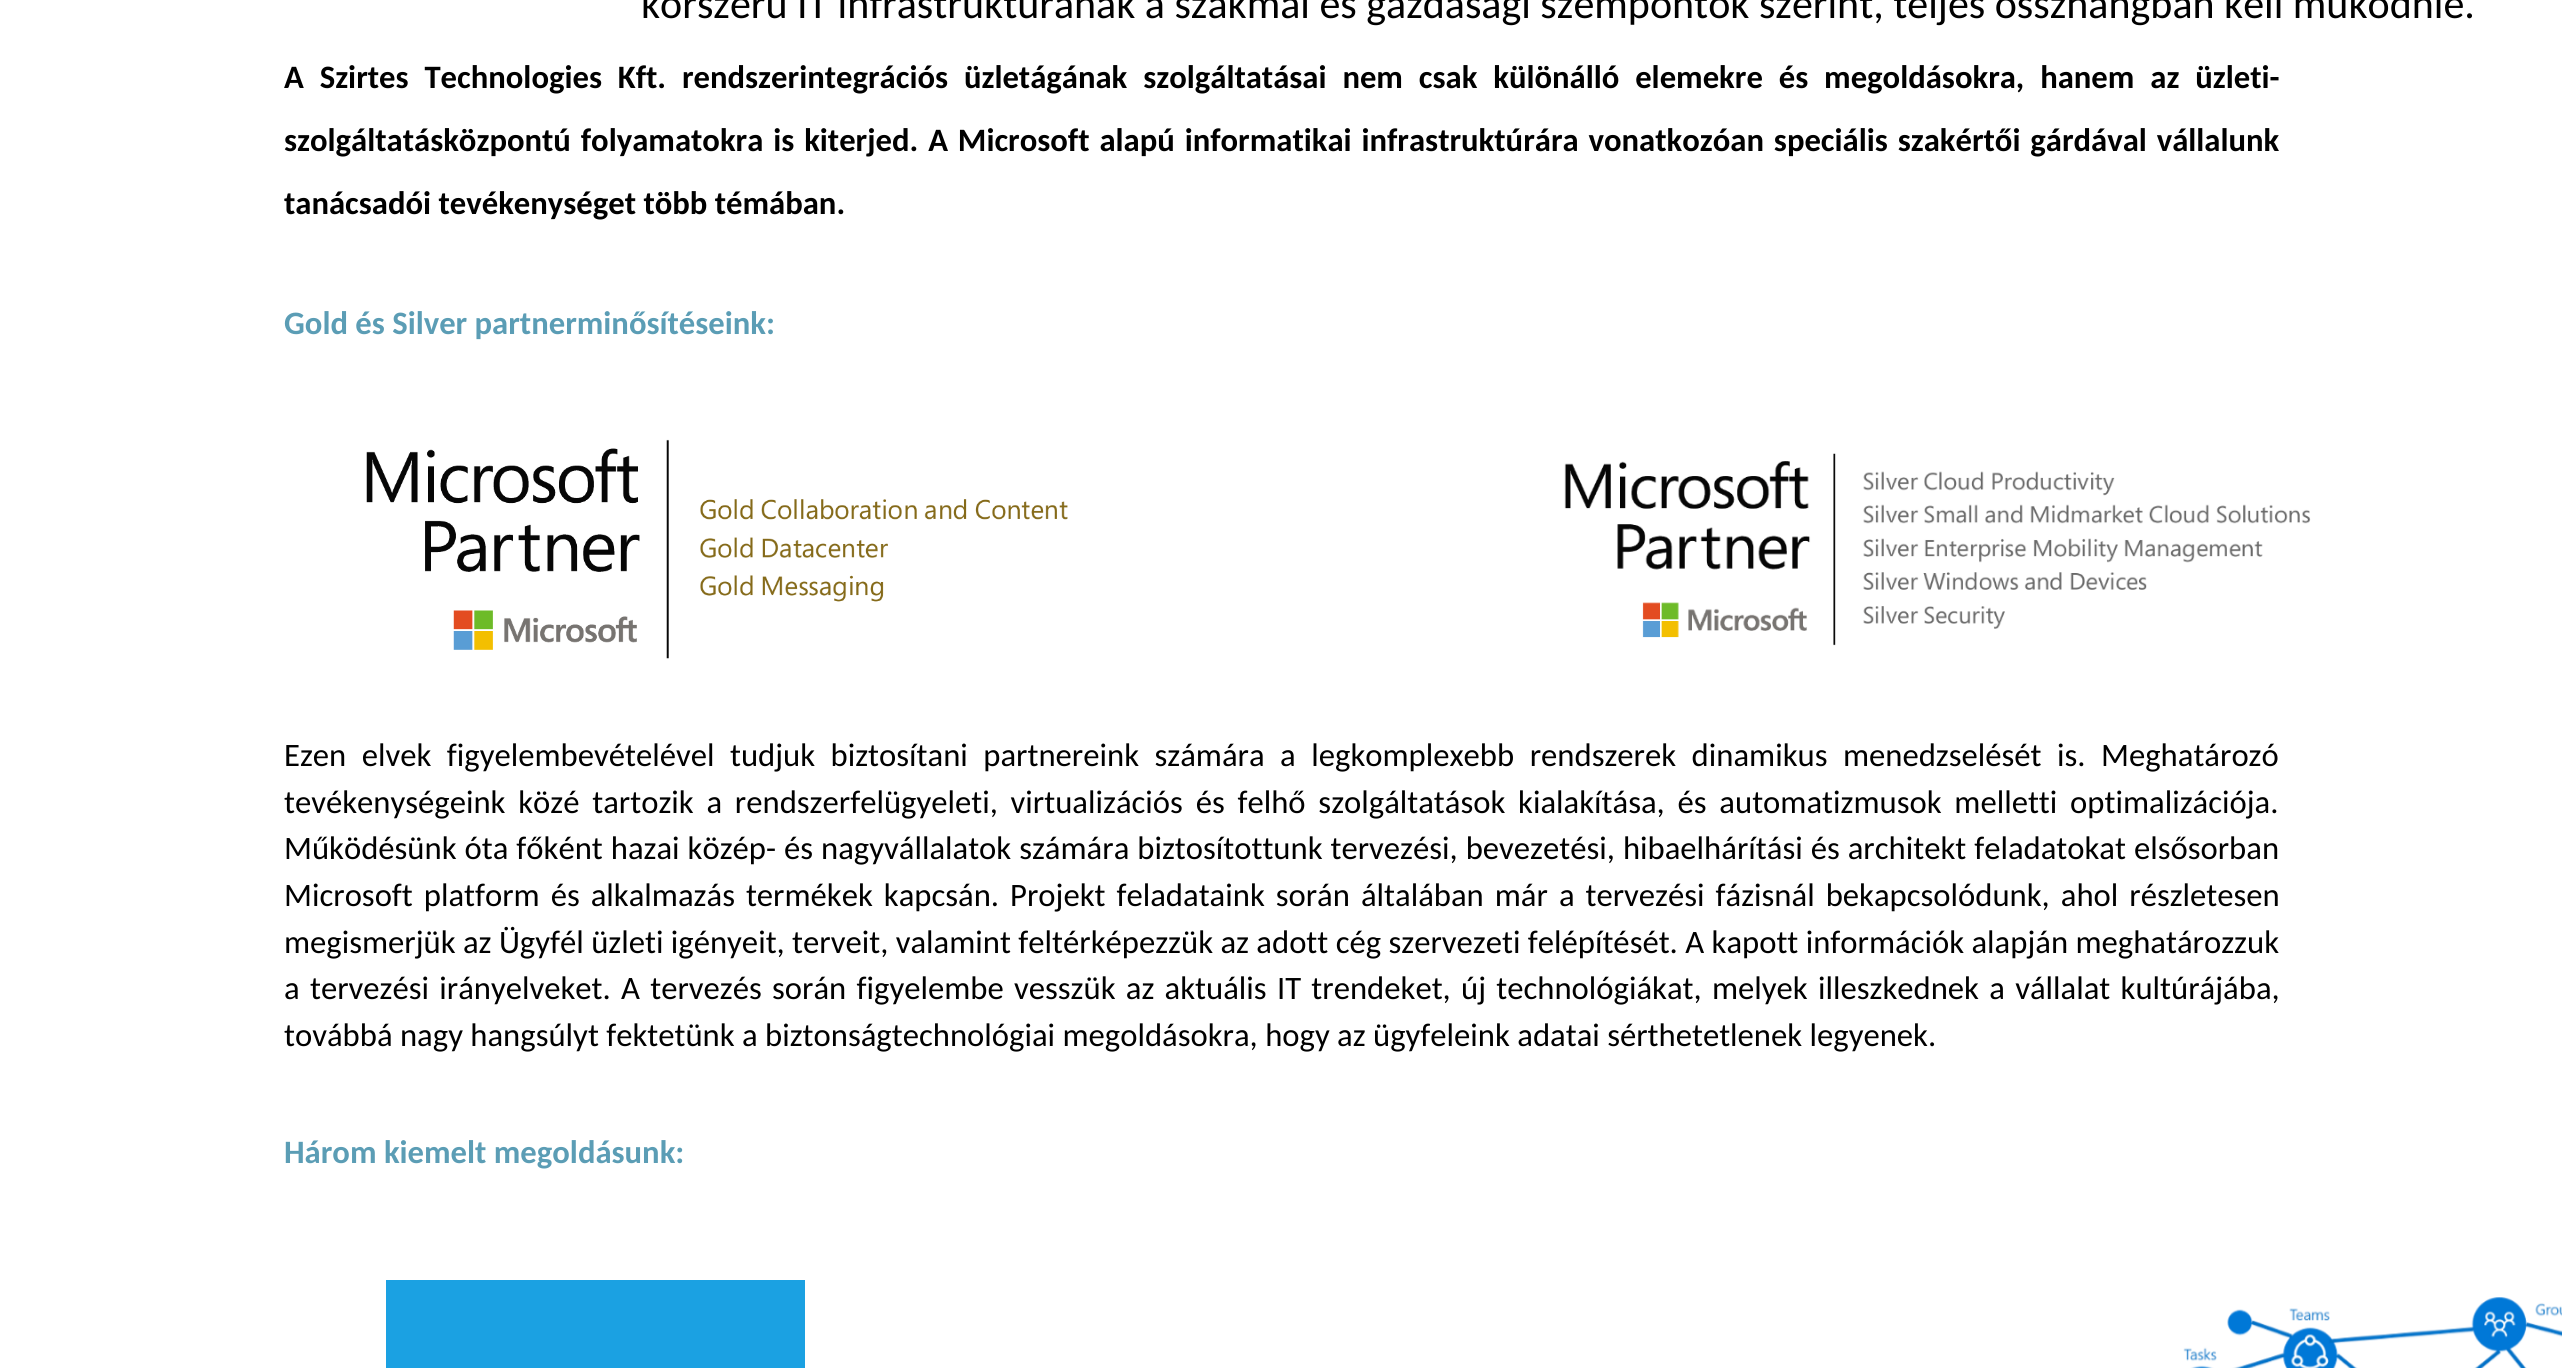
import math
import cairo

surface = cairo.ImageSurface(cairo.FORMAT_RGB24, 2562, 1368)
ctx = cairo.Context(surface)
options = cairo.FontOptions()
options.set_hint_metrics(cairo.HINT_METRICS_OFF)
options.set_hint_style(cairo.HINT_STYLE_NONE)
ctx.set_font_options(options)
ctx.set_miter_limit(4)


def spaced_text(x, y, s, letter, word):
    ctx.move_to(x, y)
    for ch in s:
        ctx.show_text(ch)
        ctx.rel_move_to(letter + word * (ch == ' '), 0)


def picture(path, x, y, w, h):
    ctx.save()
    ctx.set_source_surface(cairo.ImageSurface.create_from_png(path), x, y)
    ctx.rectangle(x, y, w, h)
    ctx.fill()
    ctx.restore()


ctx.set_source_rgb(1, 1, 1)
ctx.paint()
ctx.select_font_face("Carlito")
ctx.set_font_size(42)
ctx.set_source_rgb(0, 0, 0)
ctx.move_to(641, 18)
ctx.show_text("korszerű IT infrastruktúrának a szakmai és gazdasági szempontok szerint, teljes összhangban kell működnie.")
ctx.select_font_face("Carlito", cairo.FONT_SLANT_NORMAL, cairo.FONT_WEIGHT_BOLD)
ctx.set_font_size(32.67)
spaced_text(284, 88, "A Szirtes Technologies Kft. rendszerintegrációs üzletágának szolgáltatásai nem csak különálló elemekre és megoldásokra, hanem az üzleti-", 0, 8.5)
spaced_text(284, 151, "szolgáltatásközpontú folyamatokra is kiterjed. A Microsoft alapú informatikai infrastruktúrára vonatkozóan speciális szakértői gárdával vállalunk", 0, 2.5)
ctx.move_to(284, 214)
ctx.show_text("tanácsadói tevékenységet több témában.")
ctx.set_source_rgb(0.357, 0.616, 0.71)
ctx.move_to(284, 334)
ctx.show_text("Gold és Silver partnerminősítéseink:")
picture("img1.png", 366, 439, 702, 220)
picture("img2.png", 1564, 453, 747, 193)
ctx.select_font_face("Carlito")
ctx.set_source_rgb(0, 0, 0)
spaced_text(284, 766, "Ezen elvek figyelembevételével tudjuk biztosítani partnereink számára a legkomplexebb rendszerek dinamikus menedzselését is. Meghatározó", 0, 8.1)
spaced_text(284, 813, "tevékenységeink közé tartozik a rendszerfelügyeleti, virtualizációs és felhő szolgáltatások kialakítása, és automatizmusok melletti optimalizációja.", 0, 5.4)
spaced_text(284, 859, "Működésünk óta főként hazai közép- és nagyvállalatok számára biztosítottunk tervezési, bevezetési, hibaelhárítási és architekt feladatokat elsősorban", 0, 0.6)
spaced_text(284, 906, "Microsoft platform és alkalmazás termékek kapcsán. Projekt feladataink során általában már a tervezési fázisnál bekapcsolódunk, ahol részletesen", 0, 3.6)
ctx.move_to(284, 953)
ctx.show_text("megismerjük az Ügyfél üzleti igényeit, terveit, valamint feltérképezzük az adott cég szervezeti felépítését. A kapott információk alapján meghatározzuk")
spaced_text(284, 999, "a tervezési irányelveket. A tervezés során figyelembe vesszük az aktuális IT trendeket, új technológiákat, melyek illeszkednek a vállalat kultúrájába,", 0, 2.9)
ctx.move_to(284, 1046)
ctx.show_text("továbbá nagy hangsúlyt fektetünk a biztonságtechnológiai megoldásokra, hogy az ügyfeleink adatai sérthetetlenek legyenek.")
ctx.select_font_face("Carlito", cairo.FONT_SLANT_NORMAL, cairo.FONT_WEIGHT_BOLD)
ctx.set_source_rgb(0.357, 0.616, 0.71)
ctx.move_to(284, 1163)
ctx.show_text("Három kiemelt megoldásunk:")
ctx.set_source_rgb(0.106, 0.631, 0.886)
ctx.rectangle(386, 1280, 419, 88)
ctx.fill()
picture("img3.png", 2183, 1297, 379, 71)
surface.write_to_png("page.png")
